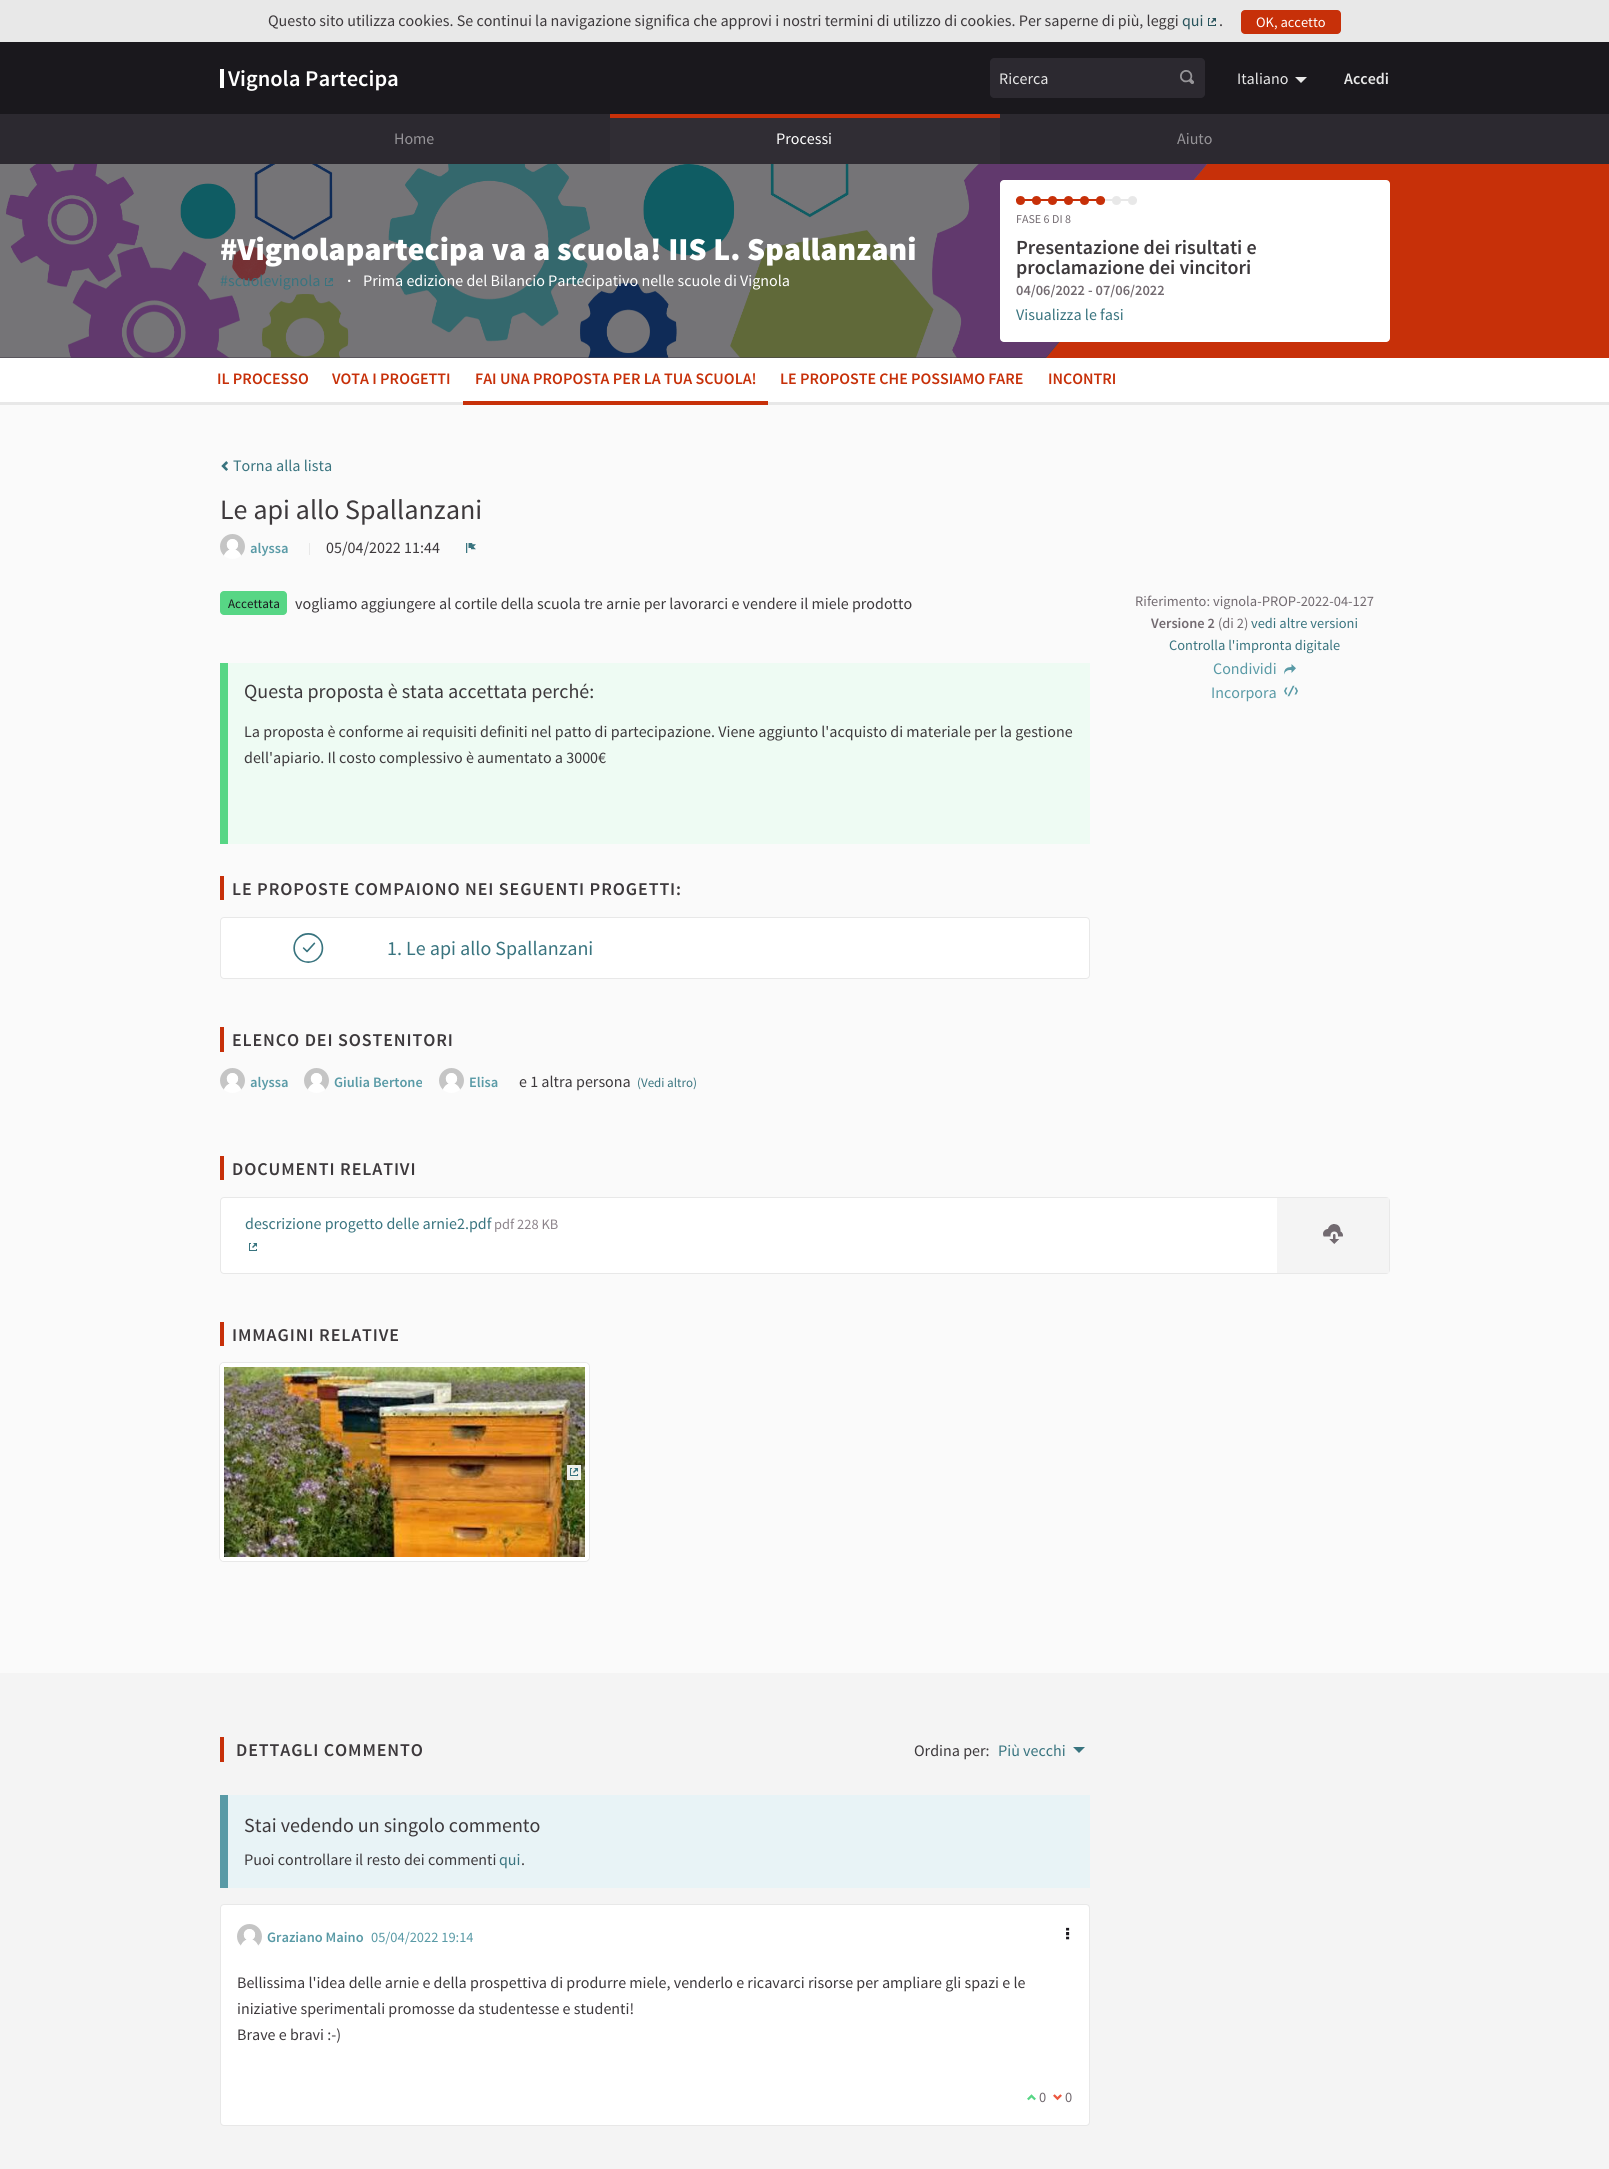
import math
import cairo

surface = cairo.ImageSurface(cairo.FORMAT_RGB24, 1609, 2169)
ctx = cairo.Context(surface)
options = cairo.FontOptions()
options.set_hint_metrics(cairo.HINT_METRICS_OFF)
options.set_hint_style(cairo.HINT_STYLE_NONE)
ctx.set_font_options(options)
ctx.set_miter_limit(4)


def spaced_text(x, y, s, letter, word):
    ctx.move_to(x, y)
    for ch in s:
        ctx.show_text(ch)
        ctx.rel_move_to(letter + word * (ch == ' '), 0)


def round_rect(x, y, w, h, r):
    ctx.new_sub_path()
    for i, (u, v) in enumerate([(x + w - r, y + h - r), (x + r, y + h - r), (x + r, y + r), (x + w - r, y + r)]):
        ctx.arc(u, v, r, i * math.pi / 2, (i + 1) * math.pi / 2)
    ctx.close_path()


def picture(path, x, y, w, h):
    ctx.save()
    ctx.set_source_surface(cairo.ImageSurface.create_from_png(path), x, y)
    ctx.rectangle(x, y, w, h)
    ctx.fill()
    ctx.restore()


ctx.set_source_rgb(0.98, 0.98, 0.98)
ctx.paint()
ctx.set_source_rgb(0.91, 0.91, 0.91)
ctx.rectangle(0, 0, 1609, 42)
ctx.fill()
ctx.select_font_face("Source Sans Pro")
ctx.set_font_size(16)
ctx.set_source_rgb(0.239, 0.224, 0.235)
ctx.move_to(268, 26)
ctx.show_text("Questo sito utilizza cookies. Se continui la navigazione significa che approvi i nostri termini di utilizzo di cookies. Per saperne di più, leggi")
ctx.set_source_rgb(0.161, 0.329, 0.361)
ctx.move_to(1182, 26)
ctx.show_text("qui")
picture("img1.png", 1208, 18, 8, 8)
ctx.set_source_rgb(0.239, 0.224, 0.235)
ctx.move_to(1219, 26)
ctx.show_text(".")
ctx.set_source_rgb(0.78, 0.188, 0.039)
round_rect(1241, 10, 100, 24, 4)
ctx.fill()
ctx.set_font_size(14.4)
ctx.set_source_rgb(1, 1, 1)
ctx.move_to(1256, 27)
ctx.show_text("OK, accetto")
ctx.set_source_rgb(0.102, 0.094, 0.114)
ctx.rectangle(0, 42, 1609, 72)
ctx.fill()
ctx.set_source_rgb(1, 1, 1)
ctx.rectangle(220, 69, 4, 19)
ctx.fill()
ctx.select_font_face("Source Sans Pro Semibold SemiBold")
ctx.set_font_size(22.5)
ctx.move_to(228, 86)
ctx.show_text("Vignola Partecipa")
ctx.set_source_rgb(0.173, 0.161, 0.188)
ctx.new_path()
ctx.move_to(994, 58)
ctx.line_to(1169, 58)
ctx.line_to(1169, 98)
ctx.line_to(994, 98)
ctx.curve_to(992, 98, 990, 96, 990, 94)
ctx.line_to(990, 62)
ctx.curve_to(990, 60, 992, 58, 994, 58)
ctx.close_path()
ctx.fill()
ctx.select_font_face("Source Sans Pro")
ctx.set_font_size(16)
ctx.set_source_rgb(0.91, 0.91, 0.91)
ctx.move_to(999, 84)
ctx.show_text("Ricerca")
ctx.set_source_rgb(0.173, 0.161, 0.188)
ctx.new_path()
ctx.move_to(1169, 58)
ctx.line_to(1201, 58)
ctx.curve_to(1203, 58, 1205, 60, 1205, 62)
ctx.line_to(1205, 94)
ctx.curve_to(1205, 96, 1203, 98, 1201, 98)
ctx.line_to(1169, 98)
ctx.close_path()
ctx.fill()
picture("img2.png", 1180, 70, 14, 14)
ctx.set_source_rgb(0.91, 0.91, 0.91)
ctx.move_to(1237, 84)
ctx.show_text("Italiano")
ctx.new_path()
ctx.move_to(1295, 77)
ctx.line_to(1307, 77)
ctx.line_to(1301, 83)
ctx.close_path()
ctx.fill()
ctx.select_font_face("Source Sans Pro Semibold SemiBold")
ctx.move_to(1344, 84)
ctx.show_text("Accedi")
ctx.set_source_rgb(0.173, 0.161, 0.188)
ctx.rectangle(0, 114, 1609, 50)
ctx.fill()
ctx.select_font_face("Source Sans Pro")
ctx.set_source_rgb(0.588, 0.58, 0.596)
ctx.move_to(394, 144)
ctx.show_text("Home")
ctx.set_source_rgb(0.188, 0.176, 0.204)
ctx.rectangle(610, 118, 390, 46)
ctx.fill()
ctx.set_source_rgb(0.78, 0.188, 0.039)
ctx.rectangle(610, 114, 390, 4)
ctx.fill()
ctx.set_source_rgb(1, 1, 1)
ctx.move_to(776, 144)
ctx.show_text("Processi")
ctx.set_source_rgb(0.588, 0.58, 0.596)
ctx.move_to(1177, 144)
ctx.show_text("Aiuto")
ctx.set_source_rgb(0.78, 0.188, 0.039)
ctx.rectangle(1046, 164, 563, 194)
ctx.fill()
ctx.set_source_rgb(0.471, 0.435, 0.514)
ctx.new_path()
ctx.move_to(0, 164)
ctx.line_to(0, 358)
ctx.line_to(1046, 358)
ctx.line_to(1207, 164)
ctx.close_path()
ctx.fill()
picture("img3.png", 0, 164, 1207, 194)
ctx.set_source_rgba(0.102, 0.094, 0.114, 0.6)
ctx.new_path()
ctx.move_to(0, 164)
ctx.line_to(0, 358)
ctx.line_to(1046, 358)
ctx.line_to(1207, 164)
ctx.close_path()
ctx.fill()
ctx.select_font_face("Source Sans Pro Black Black")
ctx.set_font_size(32)
ctx.set_source_rgb(1, 1, 1)
ctx.move_to(220, 260)
ctx.show_text("#Vignolapartecipa va a scuola! IIS L. Spallanzani")
ctx.select_font_face("Source Sans Pro")
ctx.set_font_size(16)
ctx.set_source_rgb(0.224, 0.455, 0.498)
ctx.move_to(220, 286)
ctx.show_text("#scuolevignola")
picture("img4.png", 325, 278, 8, 8)
ctx.select_font_face("Source Sans Pro Semibold SemiBold")
ctx.set_source_rgb(1, 1, 1)
ctx.move_to(347, 286)
ctx.show_text("·")
ctx.select_font_face("Source Sans Pro")
ctx.move_to(363, 286)
ctx.show_text("Prima edizione del Bilancio Partecipativo nelle scuole di Vignola")
round_rect(1000, 180, 390, 162, 4)
ctx.fill()
ctx.set_source_rgb(0.78, 0.188, 0.039)
ctx.arc(1020.5, 200.5, 4.5, 0, 2 * math.pi)
ctx.fill()
ctx.rectangle(1016, 199, 9, 2)
ctx.fill()
ctx.arc(1036.5, 200.5, 4.5, 0, 2 * math.pi)
ctx.fill()
ctx.rectangle(1025, 199, 16, 2)
ctx.fill()
ctx.arc(1052.5, 200.5, 4.5, 0, 2 * math.pi)
ctx.fill()
ctx.rectangle(1041, 199, 16, 2)
ctx.fill()
ctx.arc(1068.5, 200.5, 4.5, 0, 2 * math.pi)
ctx.fill()
ctx.rectangle(1057, 199, 16, 2)
ctx.fill()
ctx.arc(1084.5, 200.5, 4.5, 0, 2 * math.pi)
ctx.fill()
ctx.rectangle(1073, 199, 16, 2)
ctx.fill()
ctx.arc(1100.5, 200.5, 4.5, 0, 2 * math.pi)
ctx.fill()
ctx.rectangle(1089, 199, 16, 2)
ctx.fill()
ctx.set_source_rgb(0.91, 0.91, 0.91)
ctx.arc(1116.5, 200.5, 4.5, 0, 2 * math.pi)
ctx.fill()
ctx.rectangle(1105, 199, 16, 2)
ctx.fill()
ctx.arc(1132.5, 200.5, 4.5, 0, 2 * math.pi)
ctx.fill()
ctx.rectangle(1121, 199, 16, 2)
ctx.fill()
ctx.set_font_size(12)
ctx.set_source_rgb(0.447, 0.416, 0.439)
ctx.move_to(1016, 223)
ctx.show_text("FASE 6 DI 8")
ctx.select_font_face("Source Sans Pro Semibold SemiBold")
ctx.set_font_size(20)
ctx.set_source_rgb(0.239, 0.224, 0.235)
ctx.move_to(1016, 254)
ctx.show_text("Presentazione dei risultati e")
ctx.move_to(1016, 274)
ctx.show_text("proclamazione dei vincitori")
ctx.set_font_size(14.4)
ctx.set_source_rgb(0.447, 0.416, 0.439)
ctx.move_to(1016, 295)
ctx.show_text("04/06/2022 - 07/06/2022")
ctx.select_font_face("Source Sans Pro")
ctx.set_font_size(16)
ctx.set_source_rgb(0.224, 0.455, 0.498)
ctx.move_to(1016, 320)
ctx.show_text("Visualizza le fasi")
ctx.set_source_rgb(1, 1, 1)
ctx.rectangle(0, 358, 1609, 44)
ctx.fill()
ctx.set_source_rgb(0.91, 0.91, 0.91)
ctx.rectangle(0, 402, 1609, 3)
ctx.fill()
ctx.select_font_face("Source Sans Pro Semibold SemiBold")
ctx.set_source_rgb(0.78, 0.188, 0.039)
ctx.move_to(217, 384)
ctx.show_text("IL PROCESSO")
ctx.move_to(332, 384)
ctx.show_text("VOTA I PROGETTI")
ctx.rectangle(463, 401, 305, 4)
ctx.fill()
ctx.move_to(475, 384)
ctx.show_text("FAI UNA PROPOSTA PER LA TUA SCUOLA!")
ctx.move_to(780, 384)
ctx.show_text("LE PROPOSTE CHE POSSIAMO FARE")
ctx.move_to(1048, 384)
ctx.show_text("INCONTRI")
picture("img5.png", 221, 461, 7, 10)
ctx.select_font_face("Source Sans Pro")
ctx.set_source_rgb(0.224, 0.455, 0.498)
ctx.move_to(233, 471)
ctx.show_text("Torna alla lista")
ctx.set_font_size(28)
ctx.set_source_rgb(0.239, 0.224, 0.235)
ctx.move_to(220, 519)
ctx.show_text("Le api allo Spallanzani")
picture("img6.png", 220, 534, 25, 25)
ctx.select_font_face("Source Sans Pro Semibold SemiBold")
ctx.set_font_size(14.4)
ctx.set_source_rgb(0.349, 0.604, 0.651)
ctx.move_to(250, 553)
ctx.show_text("alyssa")
ctx.set_source_rgb(0.91, 0.91, 0.91)
ctx.rectangle(309, 543, 1, 12)
ctx.fill()
ctx.select_font_face("Source Sans Pro")
ctx.set_font_size(16)
ctx.set_source_rgb(0.239, 0.224, 0.235)
ctx.move_to(326, 553)
ctx.show_text("05/04/2022 11:44")
picture("img7.png", 466, 543, 10, 10)
ctx.set_source_rgb(0.341, 0.839, 0.522)
round_rect(220, 591, 67, 24, 4)
ctx.fill()
ctx.set_font_size(13)
ctx.set_source_rgb(0.102, 0.094, 0.114)
ctx.move_to(228, 608)
ctx.show_text("Accettata")
ctx.set_font_size(16)
ctx.set_source_rgb(0.239, 0.224, 0.235)
ctx.move_to(295, 609)
ctx.show_text("vogliamo aggiungere al cortile della scuola tre arnie per lavorarci e vendere il miele prodotto")
ctx.set_source_rgb(0.933, 0.984, 0.953)
ctx.rectangle(228, 663, 862, 181)
ctx.fill()
ctx.set_source_rgb(0.341, 0.839, 0.522)
ctx.rectangle(220, 663, 8, 181)
ctx.fill()
ctx.set_font_size(20)
ctx.set_source_rgb(0.239, 0.224, 0.235)
ctx.move_to(244, 698)
ctx.show_text("Questa proposta è stata accettata perché:")
ctx.set_font_size(16)
ctx.move_to(244, 737)
ctx.show_text("La proposta è conforme ai requisiti definiti nel patto di partecipazione. Viene aggiunto l'acquisto di materiale per la gestione")
ctx.move_to(244, 763)
ctx.show_text("dell'apiario. Il costo complessivo è aumentato a 3000€")
ctx.set_source_rgb(0.78, 0.188, 0.039)
ctx.rectangle(220, 876, 4, 24)
ctx.fill()
ctx.select_font_face("Source Sans Pro Semibold SemiBold")
ctx.set_font_size(18)
ctx.set_source_rgb(0.239, 0.224, 0.235)
spaced_text(232, 895, "LE PROPOSTE COMPAIONO NEI SEGUENTI PROGETTI:", 0.9, 0)
ctx.set_source_rgb(1, 1, 1)
round_rect(220.5, 917.5, 869, 61, 3.5)
ctx.fill_preserve()
ctx.set_source_rgb(0.91, 0.91, 0.91)
ctx.set_line_width(1)
ctx.stroke()
picture("img8.png", 293, 933, 31, 30)
ctx.select_font_face("Source Sans Pro")
ctx.set_font_size(20)
ctx.set_source_rgb(0.224, 0.455, 0.498)
ctx.move_to(387, 955)
ctx.show_text("1. Le api allo Spallanzani")
ctx.set_source_rgb(0.78, 0.188, 0.039)
ctx.rectangle(220, 1027, 4, 25)
ctx.fill()
ctx.select_font_face("Source Sans Pro Semibold SemiBold")
ctx.set_font_size(18)
ctx.set_source_rgb(0.239, 0.224, 0.235)
spaced_text(232, 1046, "ELENCO DEI SOSTENITORI", 0.9, 0)
picture("img6.png", 220, 1068, 25, 25)
ctx.set_font_size(14.4)
ctx.set_source_rgb(0.349, 0.604, 0.651)
ctx.move_to(250, 1087)
ctx.show_text("alyssa")
picture("img6.png", 304, 1068, 25, 25)
ctx.move_to(334, 1087)
ctx.show_text("Giulia Bertone")
picture("img6.png", 439, 1068, 25, 25)
ctx.move_to(469, 1087)
ctx.show_text("Elisa")
ctx.select_font_face("Source Sans Pro")
ctx.set_font_size(16)
ctx.set_source_rgb(0.239, 0.224, 0.235)
ctx.move_to(519, 1087)
ctx.show_text("e 1 altra persona")
ctx.set_font_size(13)
ctx.set_source_rgb(0.224, 0.455, 0.498)
ctx.move_to(637, 1087)
ctx.show_text("(Vedi altro)")
ctx.set_font_size(14.4)
ctx.set_source_rgb(0.447, 0.416, 0.439)
ctx.move_to(1135, 606)
ctx.show_text("Riferimento: vignola-PROP-2022-04-127")
ctx.select_font_face("Source Sans Pro Semibold SemiBold")
ctx.move_to(1151, 628)
ctx.show_text("Versione 2")
ctx.select_font_face("Source Sans Pro")
ctx.move_to(1218, 628)
ctx.show_text("(di 2)")
ctx.set_source_rgb(0.224, 0.455, 0.498)
ctx.move_to(1251, 628)
ctx.show_text("vedi altre versioni")
ctx.move_to(1169, 650)
ctx.show_text("Controlla l'impronta digitale")
ctx.set_font_size(16)
ctx.set_source_rgb(0.349, 0.604, 0.651)
ctx.move_to(1213, 674)
ctx.show_text("Condividi")
picture("img9.png", 1284, 664, 12, 11)
ctx.move_to(1211, 698)
ctx.show_text("Incorpora")
picture("img10.png", 1284, 685, 14, 12)
ctx.set_source_rgb(0.78, 0.188, 0.039)
ctx.rectangle(220, 1156, 4, 24)
ctx.fill()
ctx.select_font_face("Source Sans Pro Semibold SemiBold")
ctx.set_font_size(18)
ctx.set_source_rgb(0.239, 0.224, 0.235)
spaced_text(232, 1175, "DOCUMENTI RELATIVI", 0.9, 0)
ctx.set_source_rgb(1, 1, 1)
round_rect(220.5, 1197.5, 1169, 76, 3.5)
ctx.fill_preserve()
ctx.set_source_rgb(0.91, 0.91, 0.91)
ctx.stroke()
ctx.select_font_face("Source Sans Pro")
ctx.set_font_size(16)
ctx.set_source_rgb(0.224, 0.455, 0.498)
ctx.move_to(245, 1229)
ctx.show_text("descrizione progetto delle arnie2.pdf")
ctx.set_font_size(14.4)
ctx.set_source_rgb(0.549, 0.514, 0.541)
ctx.move_to(494, 1229)
ctx.show_text("pdf 228 KB")
picture("img11.png", 249, 1243, 8, 8)
ctx.set_source_rgb(0.957, 0.957, 0.957)
ctx.rectangle(1277, 1198, 112, 75)
ctx.fill()
picture("img12.png", 1323, 1224, 20, 20)
ctx.set_source_rgb(0.78, 0.188, 0.039)
ctx.rectangle(220, 1322, 4, 24)
ctx.fill()
ctx.select_font_face("Source Sans Pro Semibold SemiBold")
ctx.set_font_size(18)
ctx.set_source_rgb(0.239, 0.224, 0.235)
spaced_text(232, 1341, "IMMAGINI RELATIVE", 0.9, 0)
round_rect(219.5, 1362.5, 370, 199, 4.5)
ctx.set_source_rgb(0.91, 0.91, 0.91)
ctx.stroke()
round_rect(222, 1365, 365, 194, 2)
ctx.set_source_rgb(1, 1, 1)
ctx.set_line_width(4)
ctx.stroke()
picture("img13.png", 224, 1367, 361, 190)
ctx.set_source_rgba(1, 1, 1, 0.9)
ctx.rectangle(567, 1465, 14, 15)
ctx.fill()
picture("img14.png", 570, 1468, 8, 8)
ctx.set_source_rgb(0.957, 0.957, 0.957)
ctx.rectangle(0, 1673, 1609, 496)
ctx.fill()
ctx.set_source_rgb(0.78, 0.188, 0.039)
ctx.rectangle(220, 1737, 4, 25)
ctx.fill()
ctx.set_source_rgb(0.239, 0.224, 0.235)
spaced_text(236, 1756, "DETTAGLI COMMENTO", 0.9, 0)
ctx.select_font_face("Source Sans Pro")
ctx.set_font_size(16)
ctx.move_to(914, 1756)
ctx.show_text("Ordina per:")
ctx.set_source_rgb(0.224, 0.455, 0.498)
ctx.move_to(998, 1756)
ctx.show_text("Più vecchi")
ctx.new_path()
ctx.move_to(1073, 1747)
ctx.line_to(1085, 1747)
ctx.line_to(1079, 1753)
ctx.close_path()
ctx.fill()
ctx.set_source_rgb(0.91, 0.953, 0.961)
ctx.rectangle(228, 1795, 862, 93)
ctx.fill()
ctx.set_source_rgb(0.349, 0.604, 0.651)
ctx.rectangle(220, 1795, 8, 93)
ctx.fill()
ctx.set_font_size(20)
ctx.set_source_rgb(0.239, 0.224, 0.235)
ctx.move_to(244, 1832)
ctx.show_text("Stai vedendo un singolo commento")
ctx.set_font_size(16)
ctx.move_to(244, 1865)
ctx.show_text("Puoi controllare il resto dei commenti")
ctx.set_source_rgb(0.224, 0.455, 0.498)
ctx.move_to(499, 1865)
ctx.show_text("qui")
ctx.set_source_rgb(0.239, 0.224, 0.235)
ctx.move_to(521, 1865)
ctx.show_text(".")
ctx.set_source_rgb(1, 1, 1)
round_rect(220.5, 1904.5, 869, 221, 3.5)
ctx.fill_preserve()
ctx.set_source_rgb(0.91, 0.91, 0.91)
ctx.set_line_width(1)
ctx.stroke()
picture("img15.png", 237, 1924, 25, 22)
ctx.select_font_face("Source Sans Pro Semibold SemiBold")
ctx.set_font_size(14.4)
ctx.set_source_rgb(0.349, 0.604, 0.651)
ctx.move_to(267, 1942)
ctx.show_text("Graziano Maino")
ctx.select_font_face("Source Sans Pro")
ctx.move_to(371, 1942)
ctx.show_text("05/04/2022 19:14")
picture("img16.png", 1066, 1927, 4, 13)
ctx.set_font_size(16)
ctx.set_source_rgb(0.239, 0.224, 0.235)
ctx.move_to(237, 1988)
ctx.show_text("Bellissima l'idea delle arnie e della prospettiva di produrre miele, venderlo e ricavarci risorse per ampliare gli spazi e le")
ctx.move_to(237, 2014)
ctx.show_text("iniziative sperimentali promosse da studentesse e studenti!")
ctx.move_to(237, 2040)
ctx.show_text("Brave e bravi :-)")
picture("img17.png", 1027, 2094, 9, 7)
ctx.set_font_size(14.4)
ctx.set_source_rgb(0.447, 0.416, 0.439)
ctx.move_to(1039, 2102)
ctx.show_text("0")
picture("img18.png", 1053, 2094, 9, 7)
ctx.move_to(1065, 2102)
ctx.show_text("0")
surface.write_to_png("page.png")
